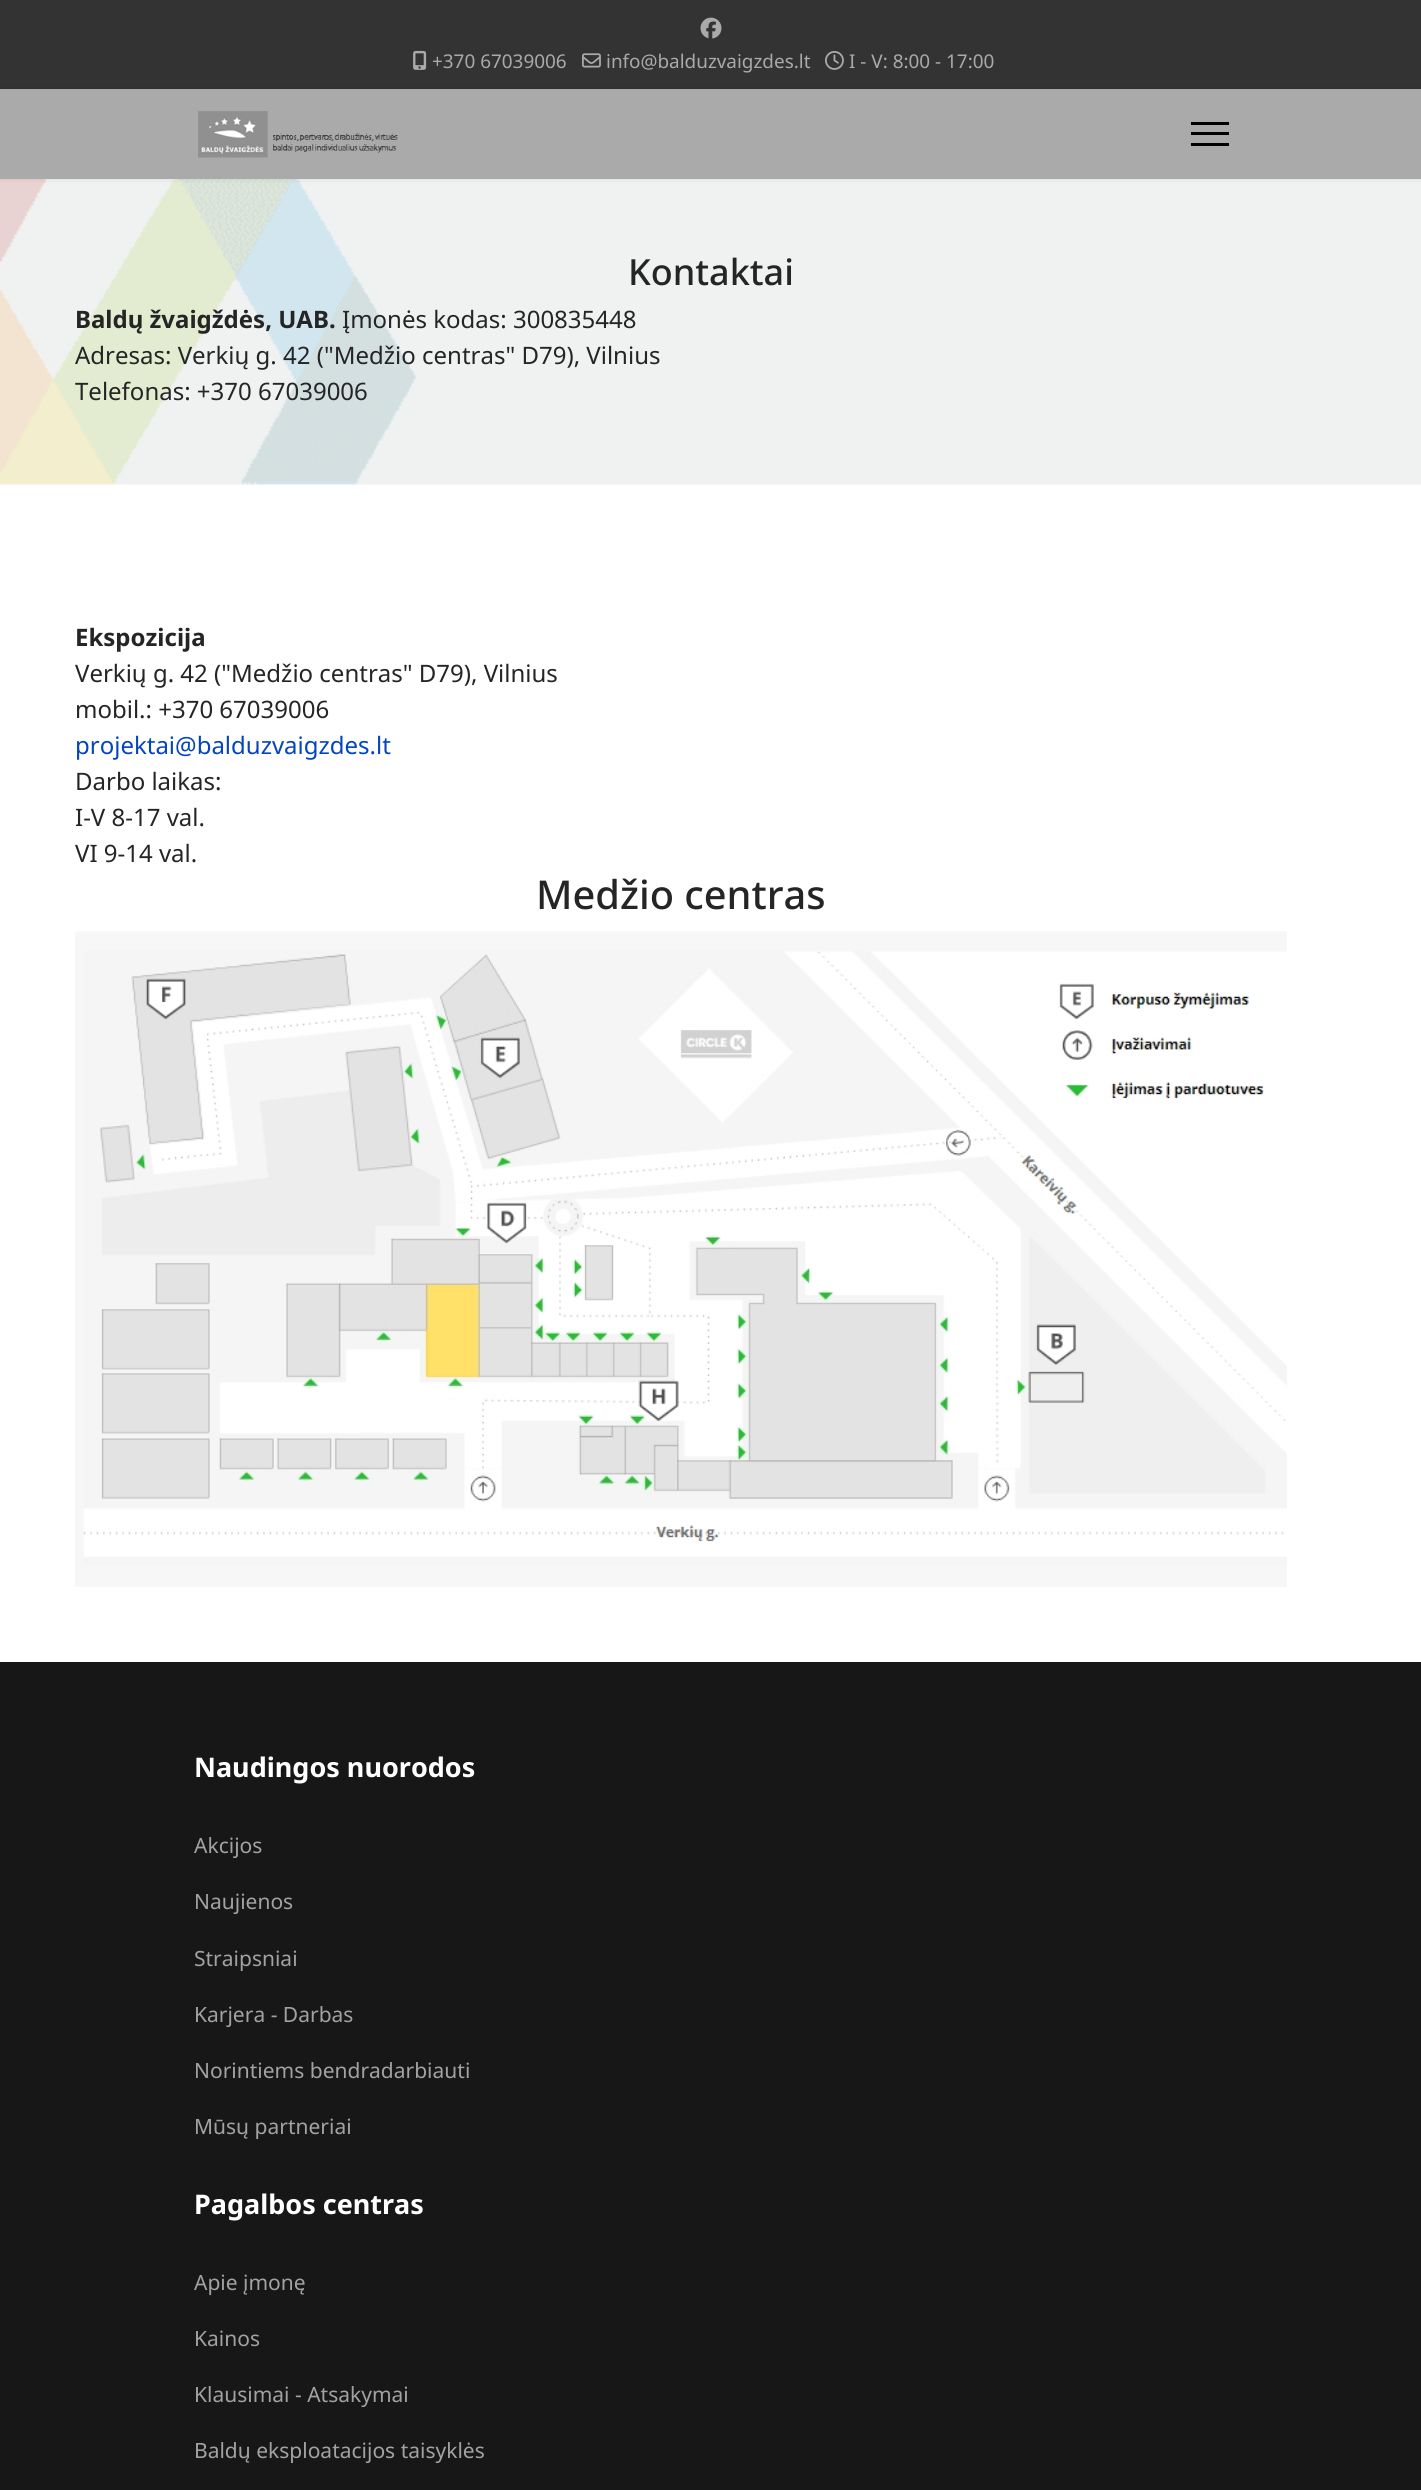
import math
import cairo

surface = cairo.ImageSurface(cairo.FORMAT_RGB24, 1421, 2490)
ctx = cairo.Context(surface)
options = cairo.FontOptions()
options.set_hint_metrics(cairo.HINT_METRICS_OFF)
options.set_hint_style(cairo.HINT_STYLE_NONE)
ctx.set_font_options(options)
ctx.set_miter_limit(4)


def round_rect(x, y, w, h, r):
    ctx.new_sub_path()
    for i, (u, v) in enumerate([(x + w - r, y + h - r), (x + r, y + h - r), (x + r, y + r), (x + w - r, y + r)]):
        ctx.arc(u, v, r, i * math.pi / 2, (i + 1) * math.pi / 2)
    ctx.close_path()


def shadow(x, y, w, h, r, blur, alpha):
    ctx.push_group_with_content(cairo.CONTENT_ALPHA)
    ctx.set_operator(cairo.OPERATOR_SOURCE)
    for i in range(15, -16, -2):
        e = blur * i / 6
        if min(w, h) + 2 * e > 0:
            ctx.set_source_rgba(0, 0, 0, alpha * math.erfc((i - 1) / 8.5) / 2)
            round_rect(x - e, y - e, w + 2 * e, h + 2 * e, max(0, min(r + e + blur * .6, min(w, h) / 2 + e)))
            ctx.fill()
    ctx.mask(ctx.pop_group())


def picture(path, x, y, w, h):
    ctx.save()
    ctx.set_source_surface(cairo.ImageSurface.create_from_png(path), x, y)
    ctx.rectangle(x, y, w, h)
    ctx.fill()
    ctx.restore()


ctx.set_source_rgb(1, 1, 1)
ctx.paint()
ctx.set_source_rgb(0.2, 0.2, 0.2)
ctx.rectangle(0, 0, 1421, 89)
ctx.fill()
picture("img1.png", 700, 17, 22, 22)
picture("img2.png", 413, 50, 14, 20)
ctx.select_font_face("Noto Sans")
ctx.set_font_size(18.9)
ctx.set_source_rgb(0.667, 0.667, 0.667)
ctx.move_to(432, 68)
ctx.show_text("+370 67039006")
picture("img3.png", 582, 53, 19, 15)
ctx.move_to(606, 68)
ctx.show_text("info@balduzvaigzdes.lt")
picture("img4.png", 825, 51, 19, 19)
ctx.move_to(849, 68)
ctx.show_text("I - V: 8:00 - 17:00")
picture("img6.png", 0, 179, 1421, 306)
ctx.set_source_rgb(0, 0, 0)
shadow(0, 89, 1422, 90, 0, 3, 0.1)
ctx.set_source_rgb(0.667, 0.667, 0.667)
ctx.rectangle(0, 89, 1421, 90)
ctx.fill()
picture("img5.png", 198, 111, 200, 47)
ctx.set_source_rgb(0, 0, 0)
ctx.rectangle(1191, 122, 38, 3)
ctx.fill()
ctx.rectangle(1191, 132, 38, 3)
ctx.fill()
ctx.rectangle(1191, 143, 38, 3)
ctx.fill()
ctx.select_font_face("Noto Sans Medium")
ctx.set_font_size(36)
ctx.set_source_rgb(0.145, 0.145, 0.145)
ctx.move_to(628, 285)
ctx.show_text("Kontaktai")
ctx.select_font_face("Noto Sans", cairo.FONT_SLANT_NORMAL, cairo.FONT_WEIGHT_BOLD)
ctx.set_font_size(24)
ctx.move_to(75, 328)
ctx.show_text("Baldų žvaigždės, UAB.")
ctx.select_font_face("Noto Sans")
ctx.move_to(342, 328)
ctx.show_text("Įmonės kodas: 300835448")
ctx.move_to(75, 364)
ctx.show_text("Adresas: Verkių g. 42 (\"Medžio centras\" D79), Vilnius")
ctx.move_to(75, 400)
ctx.show_text("Telefonas: +370 67039006")
ctx.select_font_face("Noto Sans", cairo.FONT_SLANT_NORMAL, cairo.FONT_WEIGHT_BOLD)
ctx.move_to(75, 646)
ctx.show_text("Ekspozicija")
ctx.select_font_face("Noto Sans")
ctx.move_to(75, 682)
ctx.show_text("Verkių g. 42 (\"Medžio centras\" D79), Vilnius")
ctx.move_to(75, 718)
ctx.show_text("mobil.: +370 67039006")
ctx.set_source_rgb(0.012, 0.271, 0.749)
ctx.move_to(75, 754)
ctx.show_text("projektai@balduzvaigzdes.lt")
ctx.set_source_rgb(0.145, 0.145, 0.145)
ctx.move_to(75, 790)
ctx.show_text("Darbo laikas:")
ctx.move_to(75, 826)
ctx.show_text("I-V 8-17 val.")
ctx.move_to(75, 862)
ctx.show_text("VI 9-14 val.")
ctx.select_font_face("Noto Sans Medium")
ctx.set_font_size(39.75)
ctx.move_to(536, 909)
ctx.show_text("Medžio centras")
picture("img7.png", 75, 931, 1212, 656)
ctx.set_source_rgb(0.09, 0.09, 0.09)
ctx.rectangle(0, 1662, 1421, 828)
ctx.fill()
ctx.select_font_face("Noto Sans", cairo.FONT_SLANT_NORMAL, cairo.FONT_WEIGHT_BOLD)
ctx.set_font_size(27)
ctx.set_source_rgb(1, 1, 1)
ctx.move_to(194, 1777)
ctx.show_text("Naudingos nuorodos")
ctx.select_font_face("Noto Sans")
ctx.set_font_size(21)
ctx.set_source_rgb(0.635, 0.635, 0.635)
ctx.move_to(194, 1853)
ctx.show_text("Akcijos")
ctx.move_to(194, 1909)
ctx.show_text("Naujienos")
ctx.move_to(194, 1966)
ctx.show_text("Straipsniai")
ctx.move_to(194, 2022)
ctx.show_text("Karjera - Darbas")
ctx.move_to(194, 2078)
ctx.show_text("Norintiems bendradarbiauti")
ctx.move_to(194, 2134)
ctx.show_text("Mūsų partneriai")
ctx.select_font_face("Noto Sans", cairo.FONT_SLANT_NORMAL, cairo.FONT_WEIGHT_BOLD)
ctx.set_font_size(27)
ctx.set_source_rgb(1, 1, 1)
ctx.move_to(194, 2214)
ctx.show_text("Pagalbos centras")
ctx.select_font_face("Noto Sans")
ctx.set_font_size(21)
ctx.set_source_rgb(0.635, 0.635, 0.635)
ctx.move_to(194, 2290)
ctx.show_text("Apie įmonę")
ctx.move_to(194, 2346)
ctx.show_text("Kainos")
ctx.move_to(194, 2402)
ctx.show_text("Klausimai - Atsakymai")
ctx.move_to(194, 2458)
ctx.show_text("Baldų eksploatacijos taisyklės")
surface.write_to_png("page.png")
